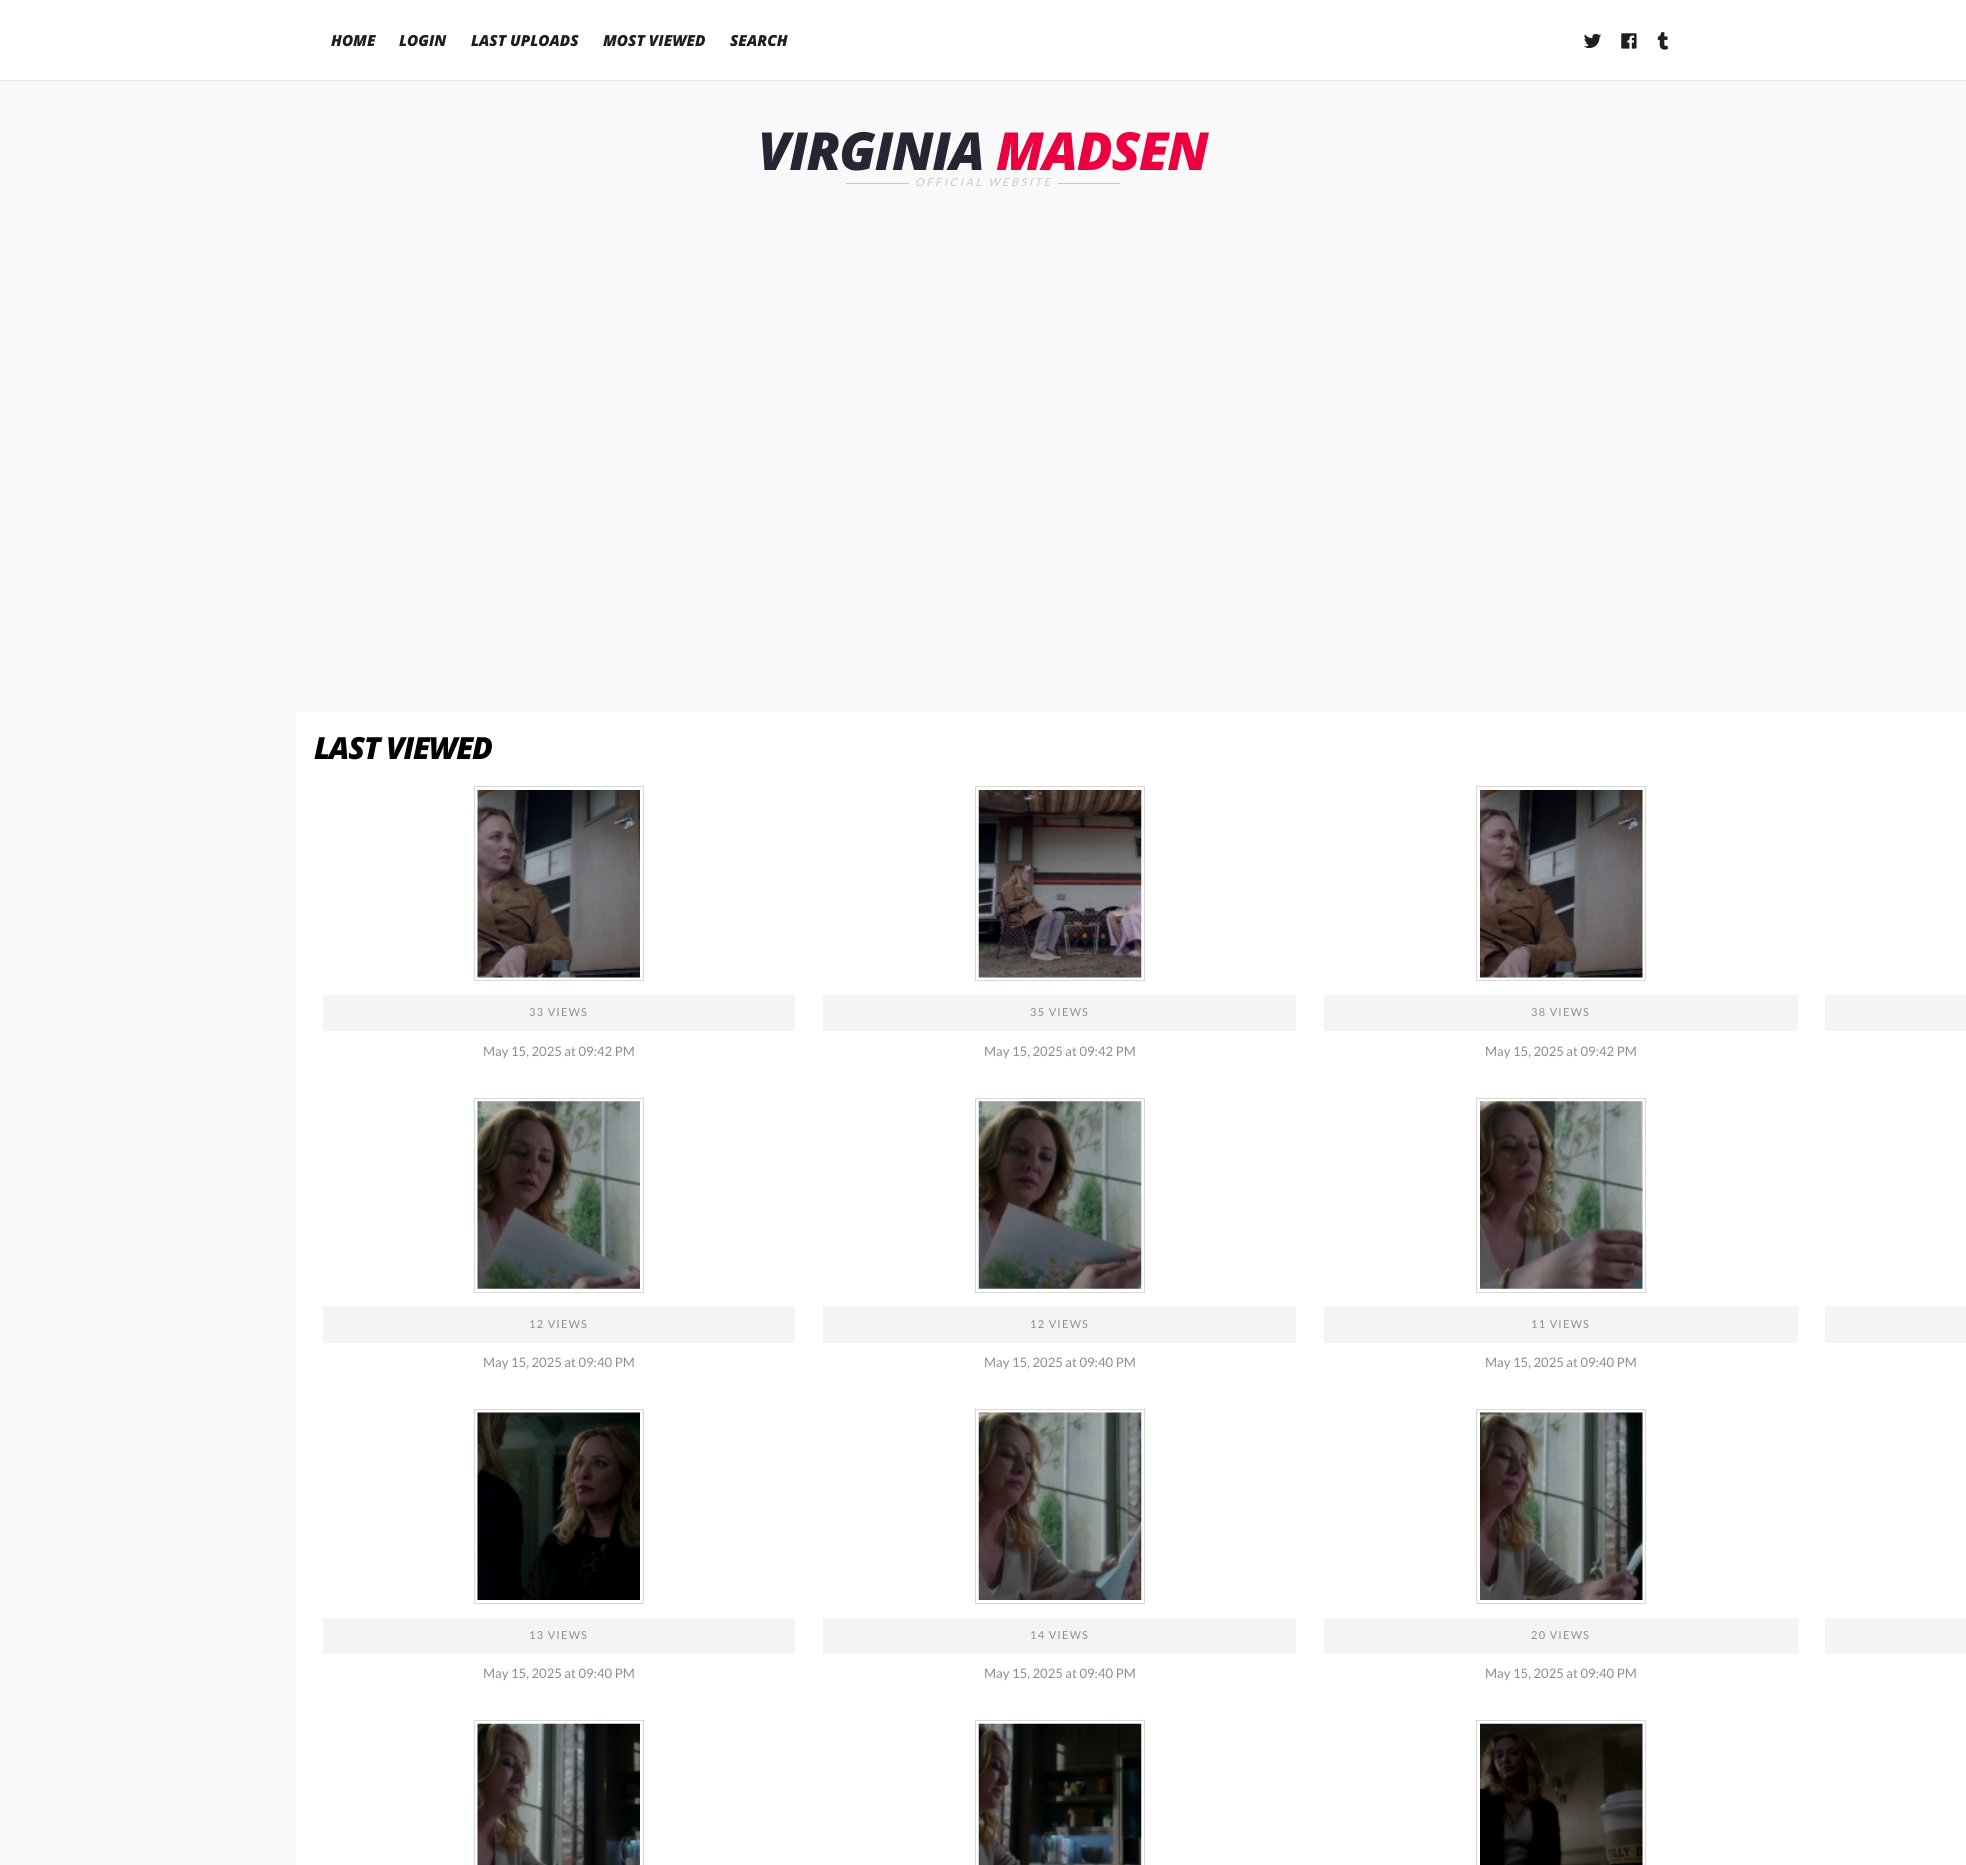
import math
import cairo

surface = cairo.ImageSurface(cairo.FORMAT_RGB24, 1966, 1865)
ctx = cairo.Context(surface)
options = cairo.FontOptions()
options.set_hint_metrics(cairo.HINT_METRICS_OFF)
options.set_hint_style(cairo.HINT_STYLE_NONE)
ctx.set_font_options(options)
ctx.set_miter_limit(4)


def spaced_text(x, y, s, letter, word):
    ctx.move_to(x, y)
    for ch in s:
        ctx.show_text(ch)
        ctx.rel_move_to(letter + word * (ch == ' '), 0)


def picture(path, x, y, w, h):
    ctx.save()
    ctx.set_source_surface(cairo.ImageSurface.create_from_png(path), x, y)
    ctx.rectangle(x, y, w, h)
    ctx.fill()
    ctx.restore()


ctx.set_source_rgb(0.973, 0.973, 0.973)
ctx.paint()
ctx.set_source_rgb(1, 1, 1)
ctx.rectangle(0, 0, 1966, 80)
ctx.fill()
ctx.set_source_rgb(0.902, 0.902, 0.902)
ctx.rectangle(0, 80, 1966, 1)
ctx.fill()
ctx.select_font_face("Open Sans ExtraBold", cairo.FONT_SLANT_ITALIC)
ctx.set_font_size(15.25)
ctx.set_source_rgb(0.118, 0.118, 0.118)
ctx.move_to(331, 46)
ctx.show_text("HOME")
ctx.move_to(399, 46)
ctx.show_text("LOGIN")
ctx.move_to(471, 46)
ctx.show_text("LAST UPLOADS")
ctx.move_to(603, 46)
ctx.show_text("MOST VIEWED")
ctx.move_to(730, 46)
ctx.show_text("SEARCH")
picture("img1.png", 1584, 33, 18, 16)
picture("img2.png", 1621, 33, 16, 16)
picture("img3.png", 1657, 32, 12, 18)
ctx.set_font_size(52.5)
ctx.set_source_rgb(0.153, 0.145, 0.2)
spaced_text(758, 170, "VIRGINIA", -1.25, 0)
ctx.set_source_rgb(0.925, 0, 0.247)
spaced_text(996, 170, "MADSEN", -1.25, 0)
ctx.set_source_rgb(0.788, 0.788, 0.788)
ctx.rectangle(846, 183, 63, 1)
ctx.fill()
ctx.select_font_face("Lato", cairo.FONT_SLANT_ITALIC)
ctx.set_font_size(11)
spaced_text(915, 186, "OFFICIAL WEBSITE", 2.5, 0)
ctx.rectangle(1058, 183, 62, 1)
ctx.fill()
ctx.set_source_rgb(1, 1, 1)
ctx.rectangle(296, 711, 1670, 1154)
ctx.fill()
ctx.select_font_face("Open Sans ExtraBold", cairo.FONT_SLANT_ITALIC)
ctx.set_font_size(30.5)
ctx.set_source_rgb(0, 0, 0)
spaced_text(314, 759, "LAST VIEWED", -1.25, 0)
ctx.rectangle(474.5, 786.5, 169, 194)
ctx.set_source_rgb(0.847, 0.847, 0.847)
ctx.set_line_width(1)
ctx.stroke()
picture("img4.png", 477, 790, 163, 188)
ctx.set_source_rgb(0.957, 0.957, 0.957)
ctx.rectangle(323, 995, 472, 36)
ctx.fill()
ctx.select_font_face("Lato")
ctx.set_font_size(11)
ctx.set_source_rgb(0.553, 0.553, 0.553)
spaced_text(529, 1016, "33 VIEWS", 1.25, 0)
ctx.set_font_size(13.1)
ctx.move_to(483, 1056)
ctx.show_text("May 15, 2025 at 09:42 PM")
ctx.rectangle(975.5, 786.5, 169, 194)
ctx.set_source_rgb(0.847, 0.847, 0.847)
ctx.stroke()
picture("img5.png", 978, 790, 164, 188)
ctx.set_source_rgb(0.957, 0.957, 0.957)
ctx.rectangle(823, 995, 473, 36)
ctx.fill()
ctx.set_font_size(11)
ctx.set_source_rgb(0.553, 0.553, 0.553)
spaced_text(1030, 1016, "35 VIEWS", 1.25, 0)
ctx.set_font_size(13.1)
ctx.move_to(984, 1056)
ctx.show_text("May 15, 2025 at 09:42 PM")
ctx.rectangle(1476.5, 786.5, 169, 194)
ctx.set_source_rgb(0.847, 0.847, 0.847)
ctx.stroke()
picture("img6.png", 1480, 790, 163, 188)
ctx.set_source_rgb(0.957, 0.957, 0.957)
ctx.rectangle(1324, 995, 474, 36)
ctx.fill()
ctx.set_font_size(11)
ctx.set_source_rgb(0.553, 0.553, 0.553)
spaced_text(1531, 1016, "38 VIEWS", 1.25, 0)
ctx.set_font_size(13.1)
ctx.move_to(1485, 1056)
ctx.show_text("May 15, 2025 at 09:42 PM")
ctx.set_source_rgb(0.957, 0.957, 0.957)
ctx.rectangle(1825, 995, 141, 36)
ctx.fill()
ctx.rectangle(474.5, 1098.5, 169, 194)
ctx.set_source_rgb(0.847, 0.847, 0.847)
ctx.stroke()
picture("img7.png", 477, 1101, 163, 188)
ctx.set_source_rgb(0.957, 0.957, 0.957)
ctx.rectangle(323, 1306, 472, 37)
ctx.fill()
ctx.set_font_size(11)
ctx.set_source_rgb(0.553, 0.553, 0.553)
spaced_text(529, 1328, "12 VIEWS", 1.25, 0)
ctx.set_font_size(13.1)
ctx.move_to(483, 1367)
ctx.show_text("May 15, 2025 at 09:40 PM")
ctx.rectangle(975.5, 1098.5, 169, 194)
ctx.set_source_rgb(0.847, 0.847, 0.847)
ctx.stroke()
picture("img8.png", 978, 1101, 164, 188)
ctx.set_source_rgb(0.957, 0.957, 0.957)
ctx.rectangle(823, 1306, 473, 37)
ctx.fill()
ctx.set_font_size(11)
ctx.set_source_rgb(0.553, 0.553, 0.553)
spaced_text(1030, 1328, "12 VIEWS", 1.25, 0)
ctx.set_font_size(13.1)
ctx.move_to(984, 1367)
ctx.show_text("May 15, 2025 at 09:40 PM")
ctx.rectangle(1476.5, 1098.5, 169, 194)
ctx.set_source_rgb(0.847, 0.847, 0.847)
ctx.stroke()
picture("img9.png", 1480, 1101, 163, 188)
ctx.set_source_rgb(0.957, 0.957, 0.957)
ctx.rectangle(1324, 1306, 474, 37)
ctx.fill()
ctx.set_font_size(11)
ctx.set_source_rgb(0.553, 0.553, 0.553)
spaced_text(1531, 1328, "11 VIEWS", 1.25, 0)
ctx.set_font_size(13.1)
ctx.move_to(1485, 1367)
ctx.show_text("May 15, 2025 at 09:40 PM")
ctx.set_source_rgb(0.957, 0.957, 0.957)
ctx.rectangle(1825, 1306, 141, 37)
ctx.fill()
ctx.rectangle(474.5, 1409.5, 169, 194)
ctx.set_source_rgb(0.847, 0.847, 0.847)
ctx.stroke()
picture("img10.png", 477, 1412, 163, 188)
ctx.set_source_rgb(0.957, 0.957, 0.957)
ctx.rectangle(323, 1618, 472, 36)
ctx.fill()
ctx.set_font_size(11)
ctx.set_source_rgb(0.553, 0.553, 0.553)
spaced_text(529, 1639, "13 VIEWS", 1.25, 0)
ctx.set_font_size(13.1)
ctx.move_to(483, 1678)
ctx.show_text("May 15, 2025 at 09:40 PM")
ctx.rectangle(975.5, 1409.5, 169, 194)
ctx.set_source_rgb(0.847, 0.847, 0.847)
ctx.stroke()
picture("img11.png", 978, 1412, 164, 188)
ctx.set_source_rgb(0.957, 0.957, 0.957)
ctx.rectangle(823, 1618, 473, 36)
ctx.fill()
ctx.set_font_size(11)
ctx.set_source_rgb(0.553, 0.553, 0.553)
spaced_text(1030, 1639, "14 VIEWS", 1.25, 0)
ctx.set_font_size(13.1)
ctx.move_to(984, 1678)
ctx.show_text("May 15, 2025 at 09:40 PM")
ctx.rectangle(1476.5, 1409.5, 169, 194)
ctx.set_source_rgb(0.847, 0.847, 0.847)
ctx.stroke()
picture("img12.png", 1480, 1412, 163, 188)
ctx.set_source_rgb(0.957, 0.957, 0.957)
ctx.rectangle(1324, 1618, 474, 36)
ctx.fill()
ctx.set_font_size(11)
ctx.set_source_rgb(0.553, 0.553, 0.553)
spaced_text(1531, 1639, "20 VIEWS", 1.25, 0)
ctx.set_font_size(13.1)
ctx.move_to(1485, 1678)
ctx.show_text("May 15, 2025 at 09:40 PM")
ctx.set_source_rgb(0.957, 0.957, 0.957)
ctx.rectangle(1825, 1618, 141, 36)
ctx.fill()
ctx.rectangle(474.5, 1720.5, 169, 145)
ctx.set_source_rgb(0.847, 0.847, 0.847)
ctx.stroke()
picture("img13.png", 477, 1723, 163, 142)
ctx.rectangle(975.5, 1720.5, 169, 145)
ctx.stroke()
picture("img14.png", 978, 1723, 164, 142)
ctx.rectangle(1476.5, 1720.5, 169, 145)
ctx.stroke()
picture("img15.png", 1480, 1723, 163, 142)
surface.write_to_png("page.png")
